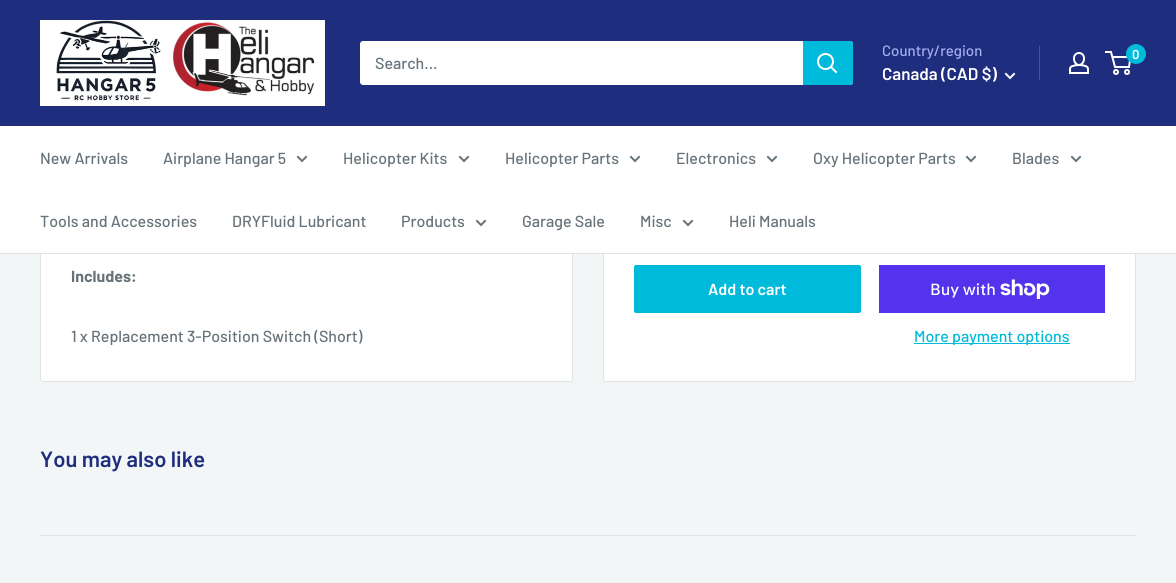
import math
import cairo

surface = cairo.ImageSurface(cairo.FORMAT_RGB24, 1176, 583)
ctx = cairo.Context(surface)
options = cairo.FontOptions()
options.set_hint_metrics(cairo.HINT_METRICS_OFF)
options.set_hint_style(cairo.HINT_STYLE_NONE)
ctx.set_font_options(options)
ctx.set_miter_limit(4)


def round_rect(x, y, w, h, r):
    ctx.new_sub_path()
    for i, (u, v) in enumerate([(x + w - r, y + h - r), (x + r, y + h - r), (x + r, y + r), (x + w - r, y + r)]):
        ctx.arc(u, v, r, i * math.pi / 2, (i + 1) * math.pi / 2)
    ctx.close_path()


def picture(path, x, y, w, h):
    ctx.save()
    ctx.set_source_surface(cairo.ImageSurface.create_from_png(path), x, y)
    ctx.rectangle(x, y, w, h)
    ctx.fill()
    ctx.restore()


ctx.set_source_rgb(0.953, 0.961, 0.965)
ctx.paint()
ctx.set_source_rgb(1, 1, 1)
round_rect(40.5, 74.5, 532, 307, 2.5)
ctx.fill_preserve()
ctx.set_source_rgb(0.882, 0.89, 0.894)
ctx.set_line_width(1)
ctx.stroke()
ctx.set_source_rgb(1, 1, 1)
round_rect(603.5, -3.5, 532, 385, 2.5)
ctx.fill_preserve()
ctx.set_source_rgb(0.882, 0.89, 0.894)
ctx.stroke()
ctx.set_source_rgb(0.118, 0.176, 0.49)
ctx.rectangle(0, 0, 1176, 126)
ctx.fill()
picture("img1.png", 40, 20, 285, 86)
ctx.set_source_rgb(1, 1, 1)
round_rect(360, 41, 493, 44, 3)
ctx.fill()
ctx.select_font_face("Barlow Medium")
ctx.set_font_size(16)
ctx.set_source_rgb(0.404, 0.447, 0.475)
ctx.move_to(375, 69)
ctx.show_text("Search...")
ctx.set_source_rgb(0, 0.729, 0.859)
ctx.new_path()
ctx.move_to(803, 41)
ctx.line_to(850, 41)
ctx.curve_to(851.5, 41, 853, 42.5, 853, 44)
ctx.line_to(853, 82)
ctx.curve_to(853, 83.5, 851.5, 85, 850, 85)
ctx.line_to(803, 85)
ctx.close_path()
ctx.fill()
ctx.new_path()
ctx.move_to(836, 72)
ctx.line_to(831, 67)
ctx.set_source_rgb(1, 1, 1)
ctx.set_line_width(2)
ctx.set_line_cap(cairo.LINE_CAP_SQUARE)
ctx.stroke()
ctx.arc(825.5, 61.5, 7.5, 0, 2 * math.pi)
ctx.set_line_cap(cairo.LINE_CAP_BUTT)
ctx.stroke()
ctx.set_font_size(15)
ctx.set_source_rgb(0.639, 0.686, 0.937)
ctx.move_to(882, 56)
ctx.show_text("Country/region")
ctx.select_font_face("Barlow SemiBold")
ctx.set_font_size(17)
ctx.set_source_rgb(1, 1, 1)
ctx.move_to(882, 80)
ctx.show_text("Canada (CAD $)")
ctx.new_path()
ctx.move_to(1014, 74)
ctx.line_to(1010, 78)
ctx.line_to(1006, 74)
ctx.set_line_cap(cairo.LINE_CAP_SQUARE)
ctx.stroke()
ctx.set_source_rgb(0.275, 0.329, 0.624)
ctx.rectangle(1039, 46, 1, 34)
ctx.fill()
picture("img2.png", 1069, 52, 20, 22)
ctx.arc(1116, 72, 2, 0, 2 * math.pi)
ctx.set_source_rgb(1, 1, 1)
ctx.set_line_cap(cairo.LINE_CAP_BUTT)
ctx.stroke()
ctx.arc(1127, 72, 2, 0, 2 * math.pi)
ctx.stroke()
ctx.new_path()
ctx.move_to(1112.5, 57)
ctx.line_to(1130.5, 57)
ctx.line_to(1129, 67)
ctx.line_to(1115, 67)
ctx.line_to(1111, 52)
ctx.line_to(1105, 52)
ctx.stroke()
ctx.set_source_rgb(0, 0.729, 0.859)
ctx.arc(1136, 54, 10, 0, 2 * math.pi)
ctx.fill()
ctx.set_font_size(13)
ctx.set_source_rgb(1, 1, 1)
ctx.move_to(1132, 59)
ctx.show_text("0")
ctx.rectangle(0, 126, 1176, 127)
ctx.fill()
ctx.set_source_rgb(0.882, 0.89, 0.894)
ctx.rectangle(0, 253, 1176, 1)
ctx.fill()
ctx.select_font_face("Barlow Medium")
ctx.set_font_size(16)
ctx.set_source_rgb(0.404, 0.447, 0.475)
ctx.move_to(40, 164)
ctx.show_text("New Arrivals")
ctx.move_to(163, 164)
ctx.show_text("Airplane Hangar 5")
ctx.new_path()
ctx.move_to(306, 157)
ctx.line_to(302, 161)
ctx.line_to(298, 157)
ctx.set_line_cap(cairo.LINE_CAP_SQUARE)
ctx.stroke()
ctx.move_to(343, 164)
ctx.show_text("Helicopter Kits")
ctx.new_path()
ctx.move_to(468, 157)
ctx.line_to(464, 161)
ctx.line_to(460, 157)
ctx.stroke()
ctx.move_to(505, 164)
ctx.show_text("Helicopter Parts")
ctx.new_path()
ctx.move_to(639, 157)
ctx.line_to(635, 161)
ctx.line_to(631, 157)
ctx.stroke()
ctx.move_to(676, 164)
ctx.show_text("Electronics")
ctx.new_path()
ctx.move_to(776, 157)
ctx.line_to(772, 161)
ctx.line_to(768, 157)
ctx.stroke()
ctx.move_to(813, 164)
ctx.show_text("Oxy Helicopter Parts")
ctx.new_path()
ctx.move_to(975, 157)
ctx.line_to(971, 161)
ctx.line_to(967, 157)
ctx.stroke()
ctx.move_to(1012, 164)
ctx.show_text("Blades")
ctx.new_path()
ctx.move_to(1080, 157)
ctx.line_to(1076, 161)
ctx.line_to(1072, 157)
ctx.stroke()
ctx.move_to(40, 227)
ctx.show_text("Tools and Accessories")
ctx.move_to(232, 227)
ctx.show_text("DRYFluid Lubricant")
ctx.move_to(401, 227)
ctx.show_text("Products")
ctx.new_path()
ctx.move_to(485, 221)
ctx.line_to(481, 225)
ctx.line_to(477, 221)
ctx.stroke()
ctx.move_to(522, 227)
ctx.show_text("Garage Sale")
ctx.move_to(640, 227)
ctx.show_text("Misc")
ctx.new_path()
ctx.move_to(692, 221)
ctx.line_to(688, 225)
ctx.line_to(684, 221)
ctx.stroke()
ctx.move_to(729, 227)
ctx.show_text("Heli Manuals")
ctx.select_font_face("Barlow", cairo.FONT_SLANT_NORMAL, cairo.FONT_WEIGHT_BOLD)
ctx.move_to(71, 282)
ctx.show_text("Includes:")
ctx.select_font_face("Barlow Medium")
ctx.move_to(71, 342)
ctx.show_text("1 x Replacement 3-Position Switch (Short)")
ctx.set_source_rgb(0, 0.729, 0.859)
round_rect(634, 265, 227, 48, 2)
ctx.fill()
ctx.select_font_face("Barlow SemiBold")
ctx.set_source_rgb(1, 1, 1)
ctx.move_to(708, 295)
ctx.show_text("Add to cart")
ctx.set_source_rgb(0.329, 0.2, 0.922)
ctx.rectangle(879, 265, 226, 48)
ctx.fill()
ctx.select_font_face("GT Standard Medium")
ctx.set_source_rgb(1, 1, 1)
ctx.move_to(930, 295)
ctx.show_text("Buy with")
picture("img3.png", 1000, 279, 50, 20)
ctx.set_source_rgb(0, 0.729, 0.859)
ctx.rectangle(914, 343, 156, 1)
ctx.fill()
ctx.select_font_face("Barlow Medium")
ctx.move_to(914, 342)
ctx.show_text("More payment options")
ctx.select_font_face("Barlow SemiBold")
ctx.set_font_size(22)
ctx.set_source_rgb(0.118, 0.176, 0.49)
ctx.move_to(40, 467)
ctx.show_text("You may also like")
ctx.set_source_rgb(0.882, 0.89, 0.894)
ctx.rectangle(40, 535, 1096, 1)
ctx.fill()
surface.write_to_png("page.png")
